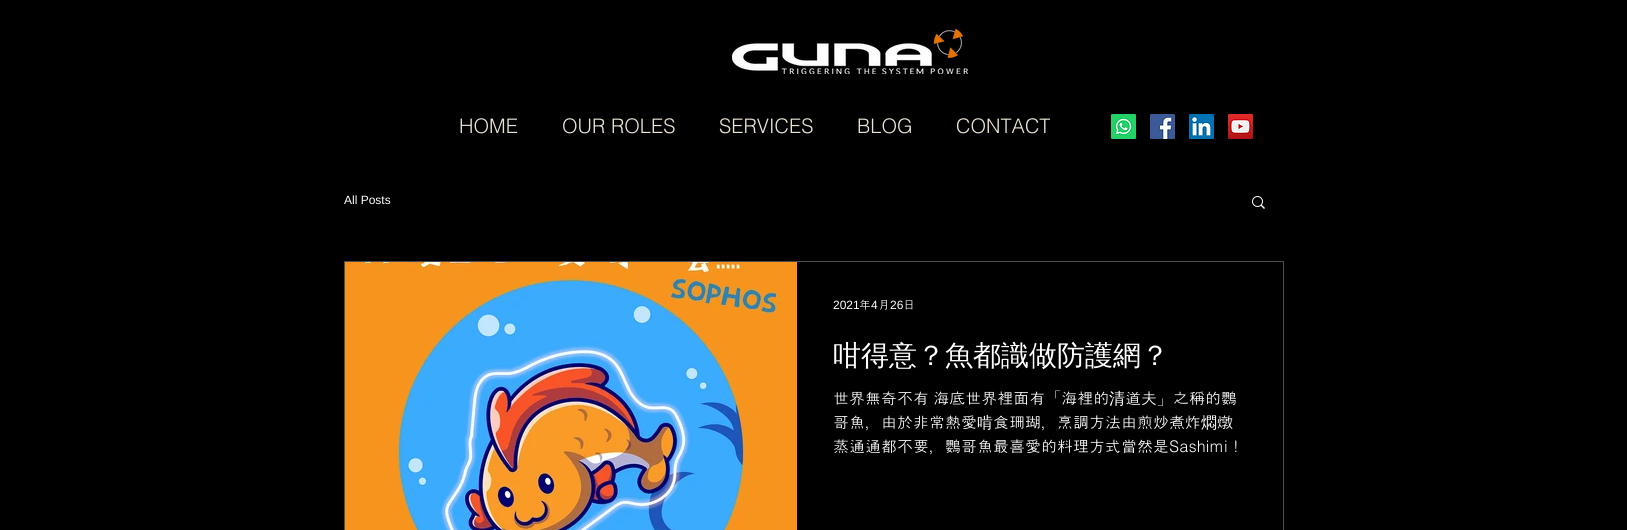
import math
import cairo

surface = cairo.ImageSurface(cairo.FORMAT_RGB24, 1627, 530)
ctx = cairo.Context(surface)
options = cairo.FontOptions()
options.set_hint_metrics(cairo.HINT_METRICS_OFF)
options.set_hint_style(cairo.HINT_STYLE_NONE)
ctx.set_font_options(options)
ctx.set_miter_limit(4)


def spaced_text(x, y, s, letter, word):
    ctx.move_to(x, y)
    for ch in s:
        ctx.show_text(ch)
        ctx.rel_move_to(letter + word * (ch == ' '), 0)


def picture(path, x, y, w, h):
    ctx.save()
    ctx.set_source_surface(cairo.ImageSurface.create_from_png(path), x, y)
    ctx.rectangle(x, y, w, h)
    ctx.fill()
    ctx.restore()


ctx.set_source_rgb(0, 0, 0)
ctx.paint()
picture("img1.png", 732, 29, 236, 45)
ctx.select_font_face("helvetica Light")
ctx.set_font_size(20)
ctx.set_source_rgb(0.922, 0.898, 0.839)
ctx.move_to(459, 133)
ctx.show_text("HOME")
ctx.move_to(562, 133)
ctx.show_text("OUR ROLES")
ctx.move_to(719, 133)
ctx.show_text("SERVICES")
ctx.move_to(857, 133)
ctx.show_text("BLOG")
ctx.move_to(956, 133)
ctx.show_text("CONTACT")
picture("img2.png", 1111, 114, 25, 25)
picture("img3.png", 1150, 114, 25, 25)
picture("img4.png", 1189, 114, 25, 25)
picture("img5.png", 1228, 114, 25, 25)
ctx.select_font_face("Liberation Sans")
ctx.set_font_size(12)
ctx.set_source_rgb(1, 1, 1)
ctx.move_to(344, 204)
ctx.show_text("All Posts")
picture("img6.png", 1252, 196, 13, 13)
ctx.rectangle(344.5, 261.5, 939, 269)
ctx.set_source_rgb(0.306, 0.306, 0.306)
ctx.set_line_width(1)
ctx.stroke()
picture("img7.png", 345, 262, 452, 268)
ctx.set_source_rgb(1, 1, 1)
ctx.move_to(833, 309)
ctx.show_text("2021")
ctx.select_font_face("Dotum")
ctx.move_to(859, 309)
ctx.show_text("年")
ctx.select_font_face("Liberation Sans")
ctx.move_to(871, 309)
ctx.show_text("4")
ctx.select_font_face("Dotum")
ctx.move_to(878, 309)
ctx.show_text("月")
ctx.select_font_face("Liberation Sans")
ctx.move_to(890, 309)
ctx.show_text("26")
ctx.select_font_face("Dotum")
ctx.move_to(903, 309)
ctx.show_text("日")
ctx.select_font_face("WenQuanYi Zen Hei Medium")
ctx.set_font_size(28)
ctx.move_to(833, 365)
ctx.show_text("咁得意？魚都識做防護網？")
ctx.select_font_face("Dotum")
ctx.set_font_size(16)
spaced_text(833, 404, "世界無奇不有 海底世界裡面有「海裡的", 0, -1)
ctx.select_font_face("WenQuanYi Zen Hei Medium")
ctx.move_to(1109, 404)
ctx.show_text("清")
ctx.select_font_face("Dotum")
ctx.move_to(1125, 404)
ctx.show_text("道夫」之稱的鸚")
ctx.move_to(833, 428)
ctx.show_text("哥魚，由於非常熱愛")
ctx.select_font_face("WenQuanYi Zen Hei Medium")
ctx.move_to(977, 428)
ctx.show_text("啃")
ctx.select_font_face("Dotum")
ctx.move_to(993, 428)
ctx.show_text("食珊瑚，烹調方法由煎炒煮炸")
ctx.select_font_face("WenQuanYi Zen Hei Medium")
ctx.move_to(1201, 428)
ctx.show_text("燜")
ctx.select_font_face("Dotum")
ctx.move_to(1217, 428)
ctx.show_text("燉")
ctx.move_to(833, 452)
ctx.show_text("蒸通通都不要，鸚哥魚最喜愛的料理方式當然是Sashimi！")
surface.write_to_png("page.png")
